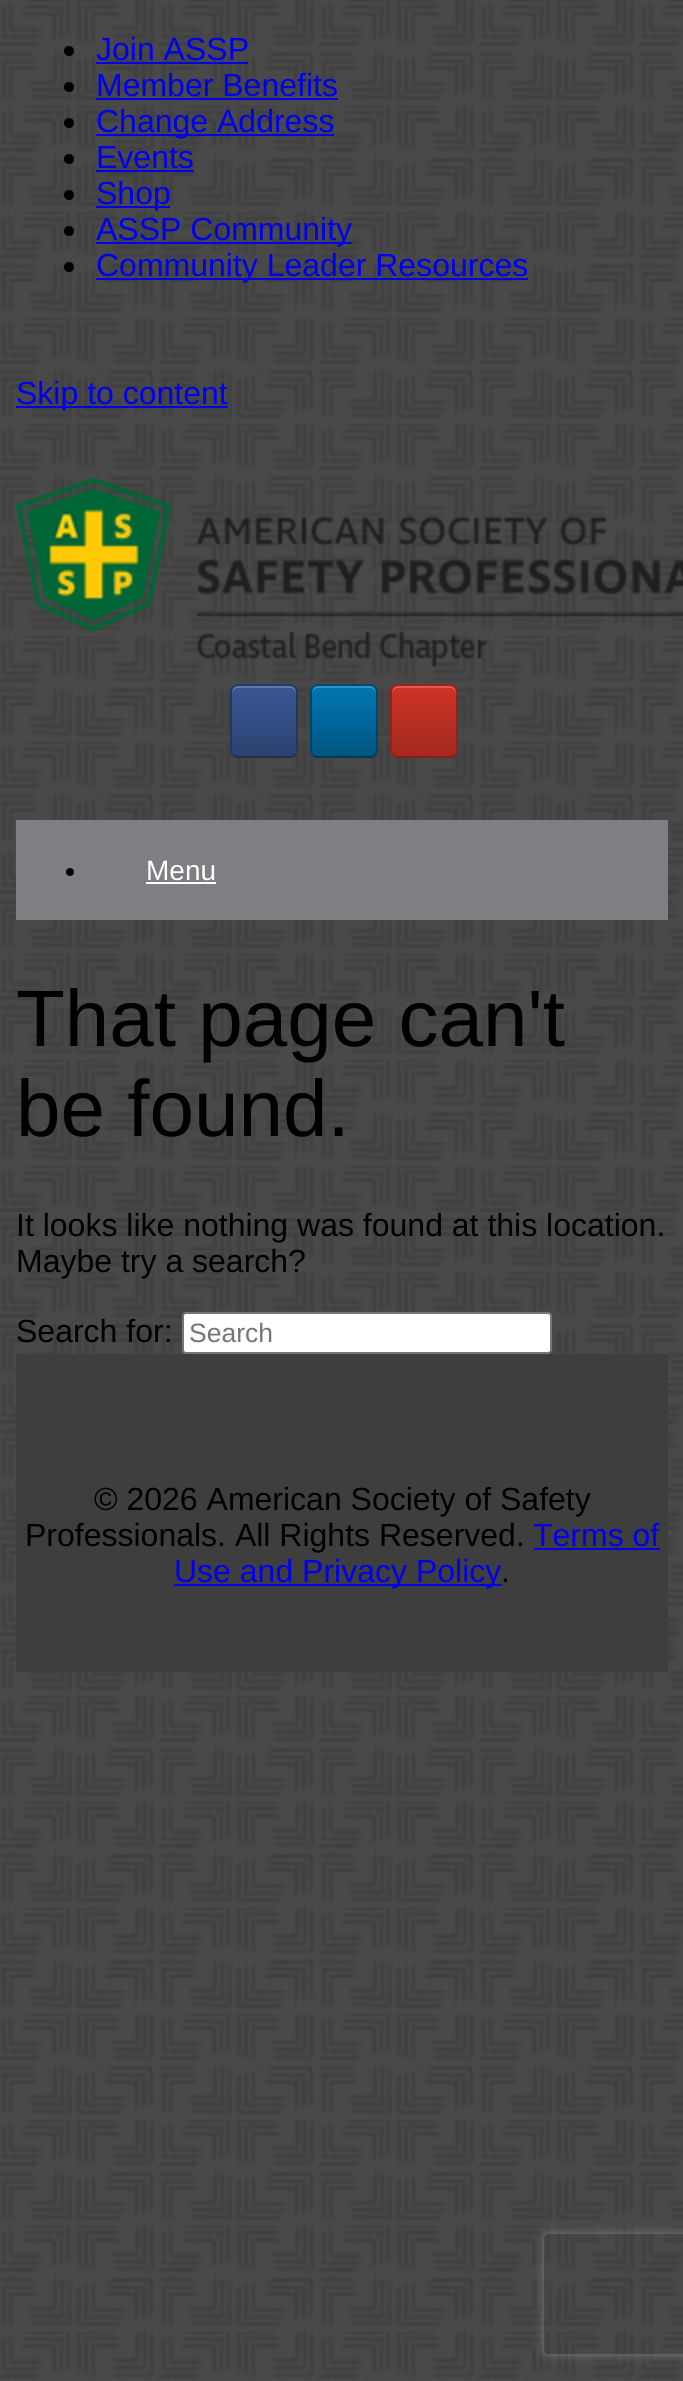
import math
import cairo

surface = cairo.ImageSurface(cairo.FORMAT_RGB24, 683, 2381)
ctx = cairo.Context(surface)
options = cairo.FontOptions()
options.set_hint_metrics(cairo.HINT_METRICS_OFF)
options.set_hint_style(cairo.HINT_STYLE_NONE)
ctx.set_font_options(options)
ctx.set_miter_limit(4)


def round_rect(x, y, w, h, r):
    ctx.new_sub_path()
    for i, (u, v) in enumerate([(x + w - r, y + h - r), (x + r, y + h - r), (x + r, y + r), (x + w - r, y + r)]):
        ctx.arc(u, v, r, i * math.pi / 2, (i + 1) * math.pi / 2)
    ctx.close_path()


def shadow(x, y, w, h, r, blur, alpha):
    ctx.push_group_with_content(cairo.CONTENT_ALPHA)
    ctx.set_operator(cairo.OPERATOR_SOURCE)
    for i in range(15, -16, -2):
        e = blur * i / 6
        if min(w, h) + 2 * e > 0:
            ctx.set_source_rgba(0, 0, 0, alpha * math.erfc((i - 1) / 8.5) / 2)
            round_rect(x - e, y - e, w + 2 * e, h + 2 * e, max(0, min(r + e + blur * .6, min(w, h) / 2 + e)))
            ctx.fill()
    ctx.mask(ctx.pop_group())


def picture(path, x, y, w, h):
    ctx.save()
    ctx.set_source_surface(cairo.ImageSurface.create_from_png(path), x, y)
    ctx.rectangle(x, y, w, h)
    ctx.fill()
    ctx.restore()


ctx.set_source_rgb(1, 1, 1)
ctx.paint()
picture("img1.png", 0, 0, 683, 2381)
ctx.set_source_rgb(0, 0, 0)
ctx.arc(69, 51, 5, 0, 2 * math.pi)
ctx.fill()
ctx.select_font_face("Liberation Sans")
ctx.set_font_size(32)
ctx.set_source_rgb(0, 0, 0.933)
ctx.move_to(96, 60)
ctx.show_text("Join ASSP")
ctx.rectangle(96, 62, 152, 2)
ctx.fill()
ctx.set_source_rgb(0, 0, 0)
ctx.arc(69, 87, 5, 0, 2 * math.pi)
ctx.fill()
ctx.set_source_rgb(0, 0, 0.933)
ctx.move_to(96, 96)
ctx.show_text("Member Benefits")
ctx.rectangle(96, 98, 242, 2)
ctx.fill()
ctx.set_source_rgb(0, 0, 0)
ctx.arc(69, 123, 5, 0, 2 * math.pi)
ctx.fill()
ctx.set_source_rgb(0, 0, 0.933)
ctx.rectangle(96, 134, 238, 2)
ctx.fill()
ctx.move_to(96, 132)
ctx.show_text("Change Address")
ctx.set_source_rgb(0, 0, 0)
ctx.new_path()
ctx.arc(69, 159, 5, 0, 2 * math.pi)
ctx.fill()
ctx.set_source_rgb(0, 0, 0.933)
ctx.move_to(96, 168)
ctx.show_text("Events")
ctx.rectangle(96, 170, 98, 2)
ctx.fill()
ctx.set_source_rgb(0, 0, 0)
ctx.arc(69, 195, 5, 0, 2 * math.pi)
ctx.fill()
ctx.set_source_rgb(0, 0, 0.933)
ctx.rectangle(96, 206, 74, 2)
ctx.fill()
ctx.move_to(96, 204)
ctx.show_text("Shop")
ctx.set_source_rgb(0, 0, 0)
ctx.new_path()
ctx.arc(69, 231, 5, 0, 2 * math.pi)
ctx.fill()
ctx.set_source_rgb(0, 0, 0.933)
ctx.rectangle(96, 242, 256, 2)
ctx.fill()
ctx.move_to(96, 240)
ctx.show_text("ASSP Community")
ctx.set_source_rgb(0, 0, 0)
ctx.new_path()
ctx.arc(69, 267, 5, 0, 2 * math.pi)
ctx.fill()
ctx.set_source_rgb(0, 0, 0.933)
ctx.rectangle(96, 278, 432, 2)
ctx.fill()
ctx.move_to(96, 276)
ctx.show_text("Community Leader Resources")
ctx.rectangle(16, 406, 212, 2)
ctx.fill()
ctx.move_to(16, 404)
ctx.show_text("Skip to content")
picture("img2.png", 16, 477, 667, 190)
ctx.save()
round_rect(230, 684, 68, 74, 8)
ctx.clip()
gradient = cairo.LinearGradient(232, 756, 232, 686)
gradient.add_color_stop_rgba(0, 0.173, 0.259, 0.439, 1)
gradient.add_color_stop_rgba(1, 0.227, 0.341, 0.584, 1)
ctx.set_source(gradient)
ctx.rectangle(230, 686, 68, 70)
ctx.fill()
ctx.restore()
ctx.set_source_rgb(0.38, 0.475, 0.667)
ctx.new_path()
ctx.move_to(238, 688)
ctx.line_to(290, 688)
ctx.curve_to(293, 688, 296, 691, 296, 694)
ctx.curve_to(296, 684, 289, 686, 281, 686)
ctx.line_to(247, 686)
ctx.curve_to(239, 686, 232, 684, 232, 694)
ctx.curve_to(232, 691, 235, 688, 238, 688)
ctx.close_path()
ctx.fill()
ctx.new_path()
ctx.move_to(233, 687)
ctx.curve_to(234.5, 685.5, 236, 685, 238, 685)
ctx.line_to(290, 685)
ctx.curve_to(292, 685, 293.5, 685.5, 295, 687)
ctx.set_source_rgb(0.153, 0.231, 0.396)
ctx.stroke()
ctx.new_path()
ctx.move_to(295, 687)
ctx.curve_to(296.5, 688.5, 297, 690, 297, 692)
ctx.line_to(297, 750)
ctx.curve_to(297, 752, 296.5, 753.5, 295, 755)
ctx.set_source_rgb(0.145, 0.216, 0.369)
ctx.stroke()
ctx.new_path()
ctx.move_to(295, 755)
ctx.curve_to(293.5, 756.5, 292, 757, 290, 757)
ctx.line_to(238, 757)
ctx.curve_to(236, 757, 234.5, 756.5, 233, 755)
ctx.set_source_rgb(0.125, 0.188, 0.325)
ctx.stroke()
ctx.new_path()
ctx.move_to(233, 755)
ctx.curve_to(231.5, 753.5, 231, 752, 231, 750)
ctx.line_to(231, 692)
ctx.curve_to(231, 690, 231.5, 688.5, 233, 687)
ctx.set_source_rgb(0.145, 0.216, 0.369)
ctx.stroke()
ctx.save()
round_rect(310, 684, 68, 74, 8)
ctx.clip()
gradient = cairo.LinearGradient(312, 756, 312, 686)
gradient.add_color_stop_rgba(0, 0.004, 0.333, 0.506, 1)
gradient.add_color_stop_rgba(1, 0.004, 0.467, 0.706, 1)
ctx.set_source(gradient)
ctx.rectangle(310, 686, 68, 70)
ctx.fill()
ctx.restore()
ctx.set_source_rgba(1, 1, 1, 0.2)
ctx.new_path()
ctx.move_to(318, 688)
ctx.line_to(370, 688)
ctx.curve_to(373, 688, 376, 691, 376, 694)
ctx.curve_to(376, 684, 369, 686, 361, 686)
ctx.line_to(327, 686)
ctx.curve_to(319, 686, 312, 684, 312, 694)
ctx.curve_to(312, 691, 315, 688, 318, 688)
ctx.close_path()
ctx.fill()
ctx.new_path()
ctx.move_to(313, 687)
ctx.curve_to(314.5, 685.5, 316, 685, 318, 685)
ctx.line_to(370, 685)
ctx.curve_to(372, 685, 373.5, 685.5, 375, 687)
ctx.set_source_rgb(0.004, 0.294, 0.447)
ctx.stroke()
ctx.new_path()
ctx.move_to(375, 687)
ctx.curve_to(376.5, 688.5, 377, 690, 377, 692)
ctx.line_to(377, 750)
ctx.curve_to(377, 752, 376.5, 753.5, 375, 755)
ctx.set_source_rgb(0.004, 0.271, 0.408)
ctx.stroke()
ctx.new_path()
ctx.move_to(375, 755)
ctx.curve_to(373.5, 756.5, 372, 757, 370, 757)
ctx.line_to(318, 757)
ctx.curve_to(316, 757, 314.5, 756.5, 313, 755)
ctx.set_source_rgb(0, 0.231, 0.349)
ctx.stroke()
ctx.new_path()
ctx.move_to(313, 755)
ctx.curve_to(311.5, 753.5, 311, 752, 311, 750)
ctx.line_to(311, 692)
ctx.curve_to(311, 690, 311.5, 688.5, 313, 687)
ctx.set_source_rgb(0.004, 0.271, 0.408)
ctx.stroke()
ctx.save()
round_rect(390, 684, 68, 74, 8)
ctx.clip()
gradient = cairo.LinearGradient(392, 756, 392, 686)
gradient.add_color_stop_rgba(0, 0.643, 0.161, 0.122, 1)
gradient.add_color_stop_rgba(1, 0.812, 0.204, 0.153, 1)
ctx.set_source(gradient)
ctx.rectangle(390, 686, 68, 70)
ctx.fill()
ctx.restore()
ctx.set_source_rgba(1, 1, 1, 0.2)
ctx.new_path()
ctx.move_to(398, 688)
ctx.line_to(450, 688)
ctx.curve_to(453, 688, 456, 691, 456, 694)
ctx.curve_to(456, 684, 449, 686, 441, 686)
ctx.line_to(407, 686)
ctx.curve_to(399, 686, 392, 684, 392, 694)
ctx.curve_to(392, 691, 395, 688, 398, 688)
ctx.close_path()
ctx.fill()
ctx.new_path()
ctx.move_to(393, 687)
ctx.curve_to(394.5, 685.5, 396, 685, 398, 685)
ctx.line_to(450, 685)
ctx.curve_to(452, 685, 453.5, 685.5, 455, 687)
ctx.set_source_rgb(0.592, 0.149, 0.11)
ctx.stroke()
ctx.new_path()
ctx.move_to(455, 687)
ctx.curve_to(456.5, 688.5, 457, 690, 457, 692)
ctx.line_to(457, 750)
ctx.curve_to(457, 752, 456.5, 753.5, 455, 755)
ctx.set_source_rgb(0.561, 0.141, 0.106)
ctx.stroke()
ctx.new_path()
ctx.move_to(455, 755)
ctx.curve_to(453.5, 756.5, 452, 757, 450, 757)
ctx.line_to(398, 757)
ctx.curve_to(396, 757, 394.5, 756.5, 393, 755)
ctx.set_source_rgb(0.51, 0.129, 0.094)
ctx.stroke()
ctx.new_path()
ctx.move_to(393, 755)
ctx.curve_to(391.5, 753.5, 391, 752, 391, 750)
ctx.line_to(391, 692)
ctx.curve_to(391, 690, 391.5, 688.5, 393, 687)
ctx.set_source_rgb(0.561, 0.141, 0.106)
ctx.stroke()
ctx.set_source_rgb(0.494, 0.498, 0.514)
ctx.rectangle(16, 820, 652, 100)
ctx.fill()
ctx.set_source_rgb(0, 0, 0)
ctx.arc(70, 872, 4, 0, 2 * math.pi)
ctx.fill()
ctx.set_font_size(28)
ctx.set_source_rgb(1, 1, 1)
ctx.move_to(146, 880)
ctx.show_text("Menu")
ctx.rectangle(146, 882, 70, 2)
ctx.fill()
ctx.set_font_size(80)
ctx.set_source_rgb(0, 0, 0)
ctx.move_to(16, 1046)
ctx.show_text("That page can't")
ctx.move_to(16, 1136)
ctx.show_text("be found.")
ctx.set_font_size(32)
ctx.move_to(16, 1236)
ctx.show_text("It looks like nothing was found at this location.")
ctx.move_to(16, 1272)
ctx.show_text("Maybe try a search?")
ctx.move_to(16, 1342)
ctx.show_text("Search for:")
ctx.set_source_rgb(1, 1, 1)
round_rect(183, 1313, 368, 40, 3)
ctx.fill_preserve()
ctx.set_source_rgb(0.463, 0.463, 0.463)
ctx.stroke()
ctx.set_font_size(26.5)
ctx.set_source_rgb(0.459, 0.459, 0.459)
ctx.move_to(189, 1342)
ctx.show_text("Search")
ctx.set_source_rgb(0.243, 0.243, 0.243)
ctx.rectangle(16, 1354, 652, 318)
ctx.fill()
ctx.set_font_size(32)
ctx.set_source_rgb(0, 0, 0)
ctx.move_to(94, 1510)
ctx.show_text("© 2026 American Society of Safety")
ctx.move_to(25, 1546)
ctx.show_text("Professionals. All Rights Reserved.")
ctx.set_source_rgb(0, 0, 0.933)
ctx.move_to(533, 1546)
ctx.show_text("Terms of")
ctx.rectangle(534, 1548, 126, 2)
ctx.fill()
ctx.rectangle(174, 1584, 328, 2)
ctx.fill()
ctx.move_to(174, 1582)
ctx.show_text("Use and Privacy Policy")
ctx.set_source_rgb(0, 0, 0)
ctx.move_to(501, 1582)
ctx.show_text(".")
ctx.save()
ctx.set_fill_rule(cairo.FILL_RULE_EVEN_ODD)
ctx.new_path()
ctx.move_to(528, 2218)
ctx.line_to(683, 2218)
ctx.line_to(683, 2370)
ctx.line_to(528, 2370)
ctx.close_path()
ctx.move_to(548, 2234)
ctx.line_to(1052, 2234)
ctx.curve_to(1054, 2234, 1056, 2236, 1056, 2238)
ctx.line_to(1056, 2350)
ctx.curve_to(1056, 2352, 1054, 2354, 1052, 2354)
ctx.line_to(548, 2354)
ctx.curve_to(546, 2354, 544, 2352, 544, 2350)
ctx.line_to(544, 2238)
ctx.curve_to(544, 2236, 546, 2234, 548, 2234)
ctx.close_path()
ctx.clip()
ctx.set_source_rgb(0.502, 0.502, 0.502)
shadow(544, 2234, 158, 120, 4, 5, 1)
ctx.restore()
surface.write_to_png("page.png")
